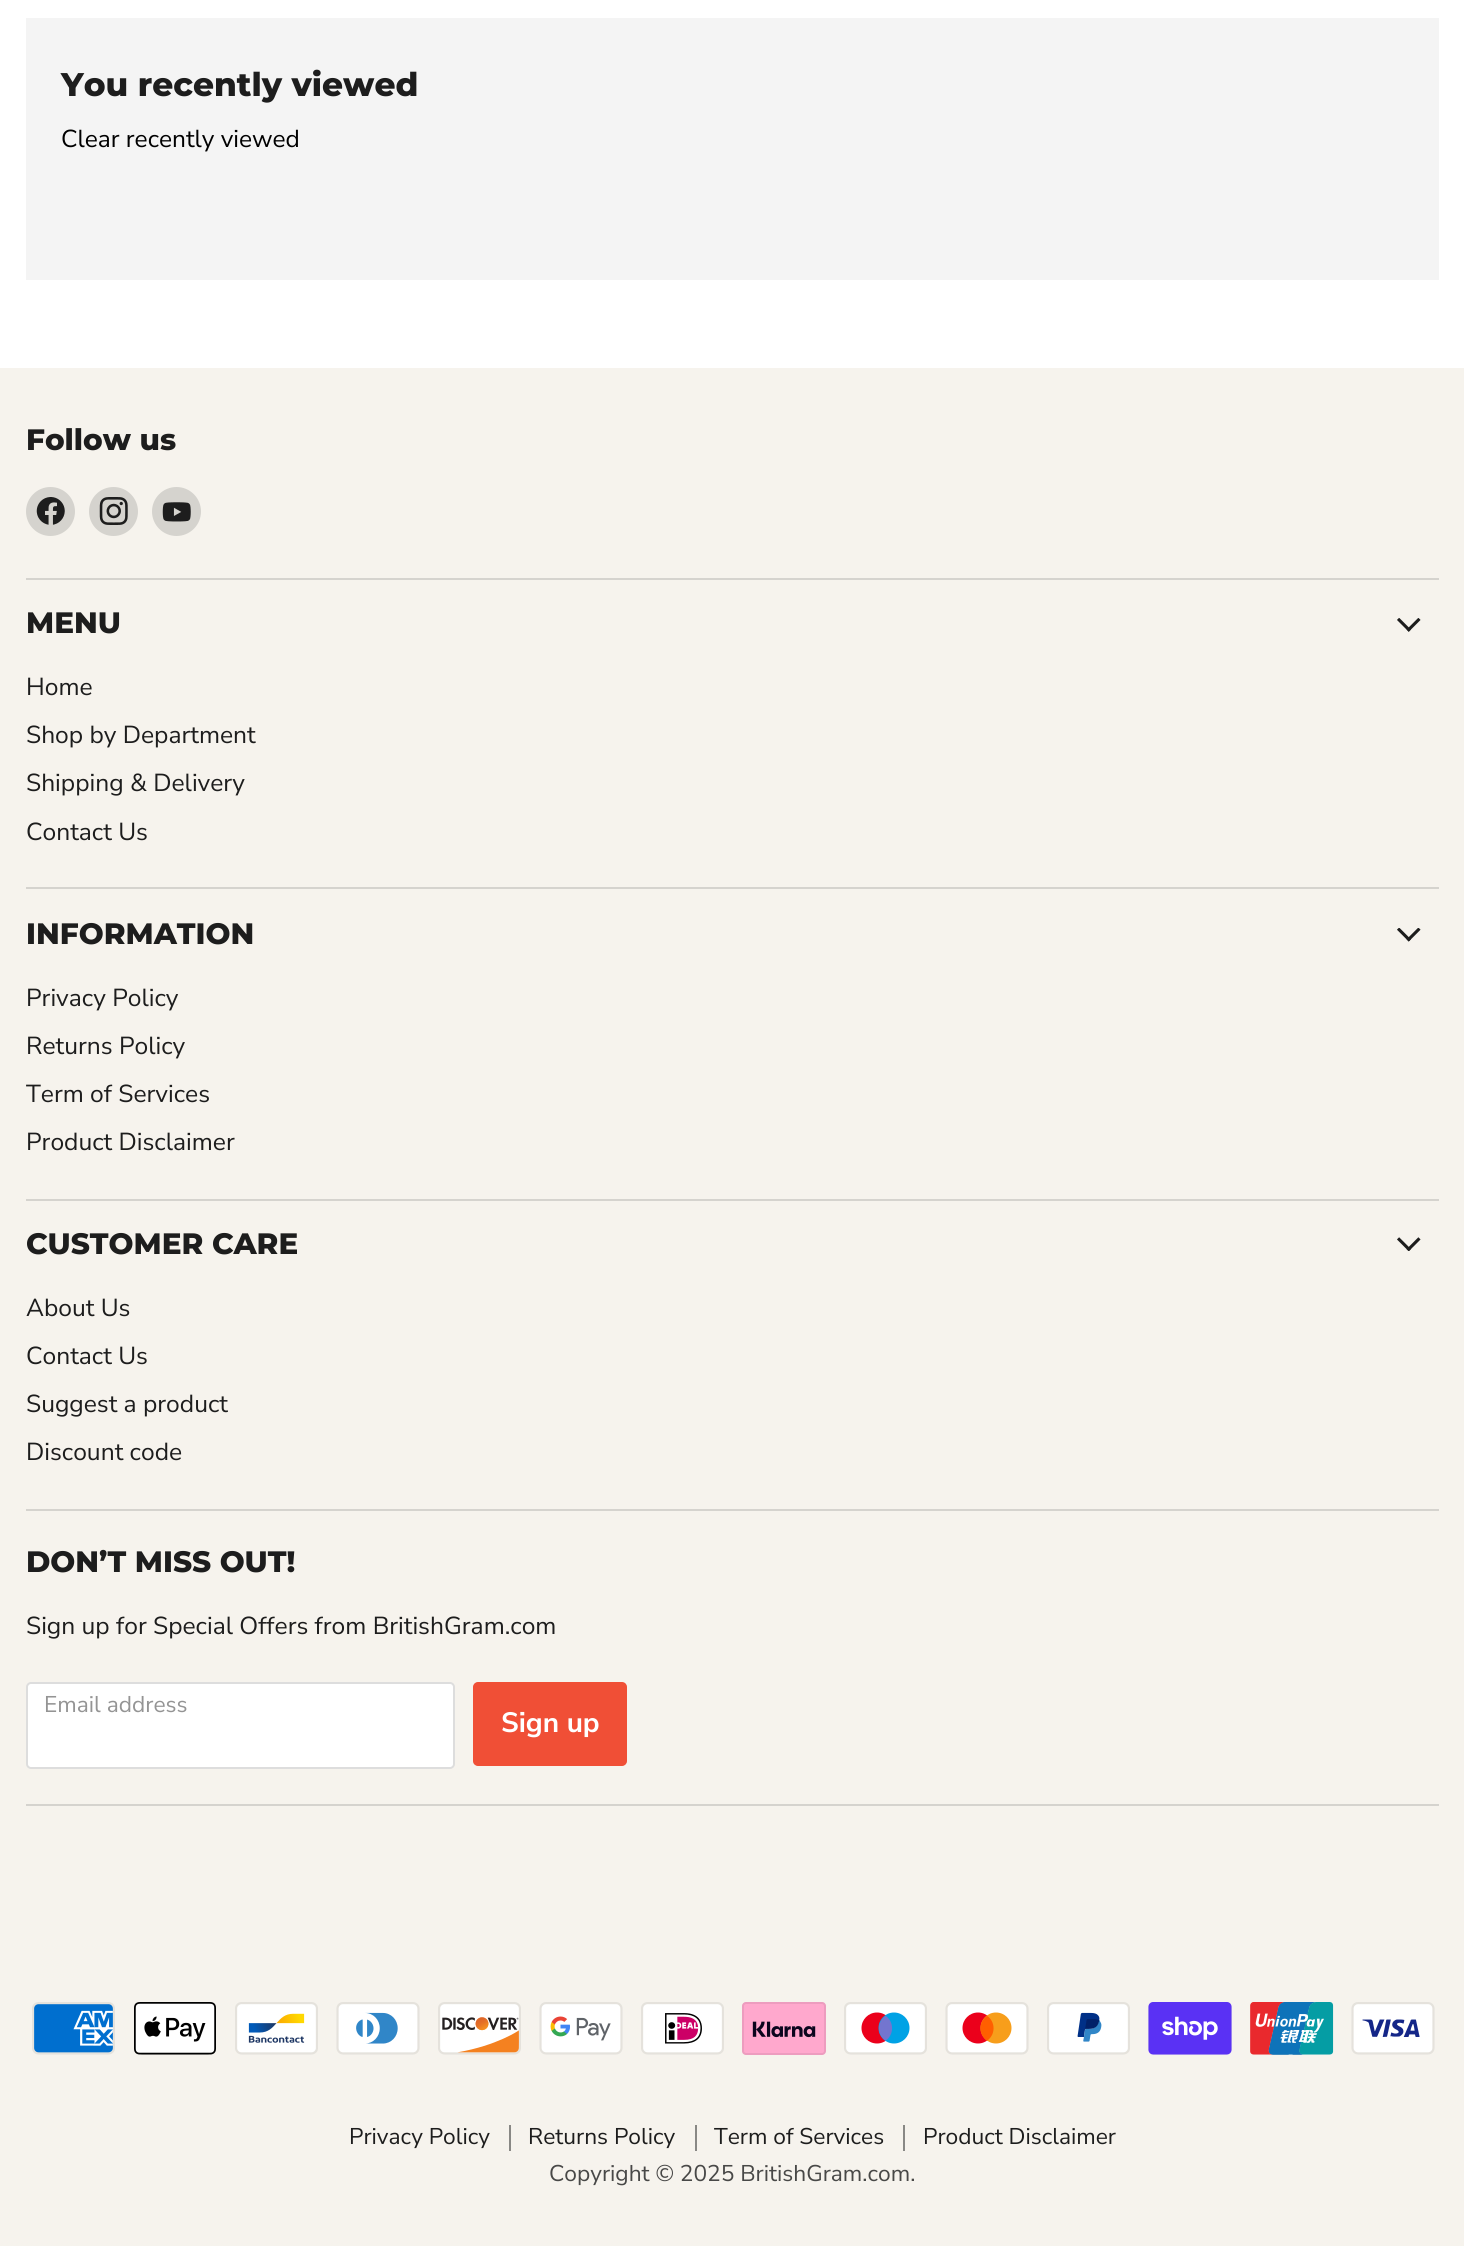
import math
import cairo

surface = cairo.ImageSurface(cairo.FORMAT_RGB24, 1464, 2246)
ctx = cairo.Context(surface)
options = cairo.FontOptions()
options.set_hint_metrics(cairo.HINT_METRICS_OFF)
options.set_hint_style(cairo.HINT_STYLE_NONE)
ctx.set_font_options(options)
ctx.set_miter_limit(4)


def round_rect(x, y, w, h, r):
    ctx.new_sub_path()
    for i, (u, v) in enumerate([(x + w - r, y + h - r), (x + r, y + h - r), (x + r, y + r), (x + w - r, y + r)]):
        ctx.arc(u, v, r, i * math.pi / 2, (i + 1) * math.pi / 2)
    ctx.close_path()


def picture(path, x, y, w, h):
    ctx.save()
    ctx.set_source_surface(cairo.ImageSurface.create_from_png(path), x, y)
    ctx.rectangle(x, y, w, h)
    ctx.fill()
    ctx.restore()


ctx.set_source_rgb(1, 1, 1)
ctx.paint()
ctx.set_source_rgb(0.957, 0.957, 0.957)
ctx.rectangle(26, 18, 1413, 262)
ctx.fill()
ctx.select_font_face("Montserrat ExtraBold")
ctx.set_font_size(32.75)
ctx.set_source_rgb(0.114, 0.114, 0.114)
ctx.move_to(61, 96)
ctx.show_text("You recently viewed")
ctx.select_font_face("Nunito Sans")
ctx.set_font_size(24.5)
ctx.set_source_rgb(0, 0, 0)
ctx.move_to(61, 147)
ctx.show_text("Clear recently viewed")
ctx.set_source_rgb(0.961, 0.953, 0.929)
ctx.rectangle(0, 368, 1464, 1878)
ctx.fill()
ctx.set_source_rgb(0.835, 0.827, 0.808)
ctx.rectangle(26, 578, 1413, 2)
ctx.fill()
ctx.select_font_face("Montserrat ExtraBold")
ctx.set_font_size(29.5)
ctx.set_source_rgb(0.114, 0.114, 0.114)
ctx.move_to(26, 450)
ctx.show_text("Follow us")
ctx.set_source_rgb(0.835, 0.827, 0.808)
ctx.new_path()
ctx.arc(50.5, 511.5, 24.5, 0, 2 * math.pi)
ctx.fill()
picture("img1.png", 36, 497, 29, 28)
ctx.arc(113.5, 511.5, 24.5, 0, 2 * math.pi)
ctx.fill()
picture("img2.png", 99, 497, 29, 28)
ctx.arc(176.5, 511.5, 24.5, 0, 2 * math.pi)
ctx.fill()
picture("img3.png", 162, 502, 29, 20)
ctx.rectangle(26, 887, 1413, 2)
ctx.fill()
ctx.set_source_rgb(0.114, 0.114, 0.114)
ctx.move_to(26, 633)
ctx.show_text("MENU")
picture("img4.png", 1397, 618, 24, 14)
ctx.select_font_face("Nunito Sans")
ctx.set_font_size(24.6)
ctx.move_to(26, 695)
ctx.show_text("Home")
ctx.move_to(26, 743)
ctx.show_text("Shop by Department")
ctx.move_to(26, 791)
ctx.show_text("Shipping & Delivery")
ctx.move_to(26, 840)
ctx.show_text("Contact Us")
ctx.set_source_rgb(0.835, 0.827, 0.808)
ctx.rectangle(26, 1199, 1413, 2)
ctx.fill()
ctx.select_font_face("Montserrat ExtraBold")
ctx.set_font_size(29.5)
ctx.set_source_rgb(0.114, 0.114, 0.114)
ctx.move_to(26, 944)
ctx.show_text("INFORMATION")
picture("img5.png", 1397, 928, 24, 14)
ctx.select_font_face("Nunito Sans")
ctx.set_font_size(24.6)
ctx.move_to(26, 1006)
ctx.show_text("Privacy Policy")
ctx.move_to(26, 1054)
ctx.show_text("Returns Policy")
ctx.move_to(26, 1102)
ctx.show_text("Term of Services")
ctx.move_to(26, 1150)
ctx.show_text("Product Disclaimer")
ctx.set_source_rgb(0.835, 0.827, 0.808)
ctx.rectangle(26, 1509, 1413, 2)
ctx.fill()
ctx.select_font_face("Montserrat ExtraBold")
ctx.set_font_size(29.5)
ctx.set_source_rgb(0.114, 0.114, 0.114)
ctx.move_to(26, 1254)
ctx.show_text("CUSTOMER CARE")
picture("img6.png", 1397, 1237, 24, 14)
ctx.select_font_face("Nunito Sans")
ctx.set_font_size(24.6)
ctx.move_to(26, 1316)
ctx.show_text("About Us")
ctx.move_to(26, 1364)
ctx.show_text("Contact Us")
ctx.move_to(26, 1412)
ctx.show_text("Suggest a product")
ctx.move_to(26, 1460)
ctx.show_text("Discount code")
ctx.set_source_rgb(0.835, 0.827, 0.808)
ctx.rectangle(26, 1804, 1413, 2)
ctx.fill()
ctx.select_font_face("Montserrat ExtraBold")
ctx.set_font_size(29.5)
ctx.set_source_rgb(0.114, 0.114, 0.114)
ctx.move_to(26, 1572)
ctx.show_text("DON’T MISS OUT!")
ctx.select_font_face("Nunito Sans")
ctx.set_font_size(24.6)
ctx.move_to(26, 1634)
ctx.show_text("Sign up for Special Offers from BritishGram.com")
ctx.set_source_rgb(1, 1, 1)
round_rect(27, 1683, 427, 85, 4)
ctx.fill_preserve()
ctx.set_source_rgb(0.867, 0.867, 0.867)
ctx.stroke()
ctx.set_font_size(22.75)
ctx.set_source_rgb(0.58, 0.58, 0.58)
ctx.move_to(44, 1712)
ctx.show_text("Email address")
ctx.set_source_rgb(0.941, 0.31, 0.212)
round_rect(474, 1683, 152, 82, 4)
ctx.fill_preserve()
ctx.stroke()
ctx.select_font_face("Nunito Sans", cairo.FONT_SLANT_NORMAL, cairo.FONT_WEIGHT_BOLD)
ctx.set_font_size(28)
ctx.set_source_rgb(1, 1, 1)
ctx.move_to(501, 1732)
ctx.show_text("Sign up")
picture("img7.png", 32, 2002, 83, 53)
picture("img8.png", 134, 2002, 82, 53)
picture("img9.png", 235, 2002, 83, 53)
picture("img10.png", 336, 2002, 84, 53)
picture("img11.png", 438, 2002, 83, 53)
picture("img12.png", 539, 2002, 84, 53)
picture("img13.png", 641, 2002, 83, 53)
picture("img14.png", 742, 2002, 84, 53)
picture("img15.png", 844, 2002, 83, 53)
picture("img16.png", 945, 2002, 84, 53)
picture("img17.png", 1047, 2002, 83, 53)
picture("img18.png", 1148, 2002, 84, 53)
picture("img19.png", 1250, 2002, 84, 53)
picture("img20.png", 1351, 2002, 84, 53)
ctx.set_source_rgb(0.537, 0.533, 0.522)
ctx.rectangle(509, 2125, 2, 26)
ctx.fill()
ctx.select_font_face("Nunito Sans")
ctx.set_font_size(22.75)
ctx.set_source_rgb(0.114, 0.114, 0.114)
ctx.move_to(349, 2144)
ctx.show_text("Privacy Policy")
ctx.set_source_rgb(0.537, 0.533, 0.522)
ctx.rectangle(695, 2125, 2, 26)
ctx.fill()
ctx.set_source_rgb(0.114, 0.114, 0.114)
ctx.move_to(528, 2144)
ctx.show_text("Returns Policy")
ctx.set_source_rgb(0.537, 0.533, 0.522)
ctx.rectangle(903, 2125, 2, 26)
ctx.fill()
ctx.set_source_rgb(0.114, 0.114, 0.114)
ctx.move_to(714, 2144)
ctx.show_text("Term of Services")
ctx.move_to(923, 2144)
ctx.show_text("Product Disclaimer")
ctx.set_source_rgb(0.282, 0.282, 0.278)
ctx.move_to(549, 2181)
ctx.show_text("Copyright © 2025 BritishGram.com.")
surface.write_to_png("page.png")
